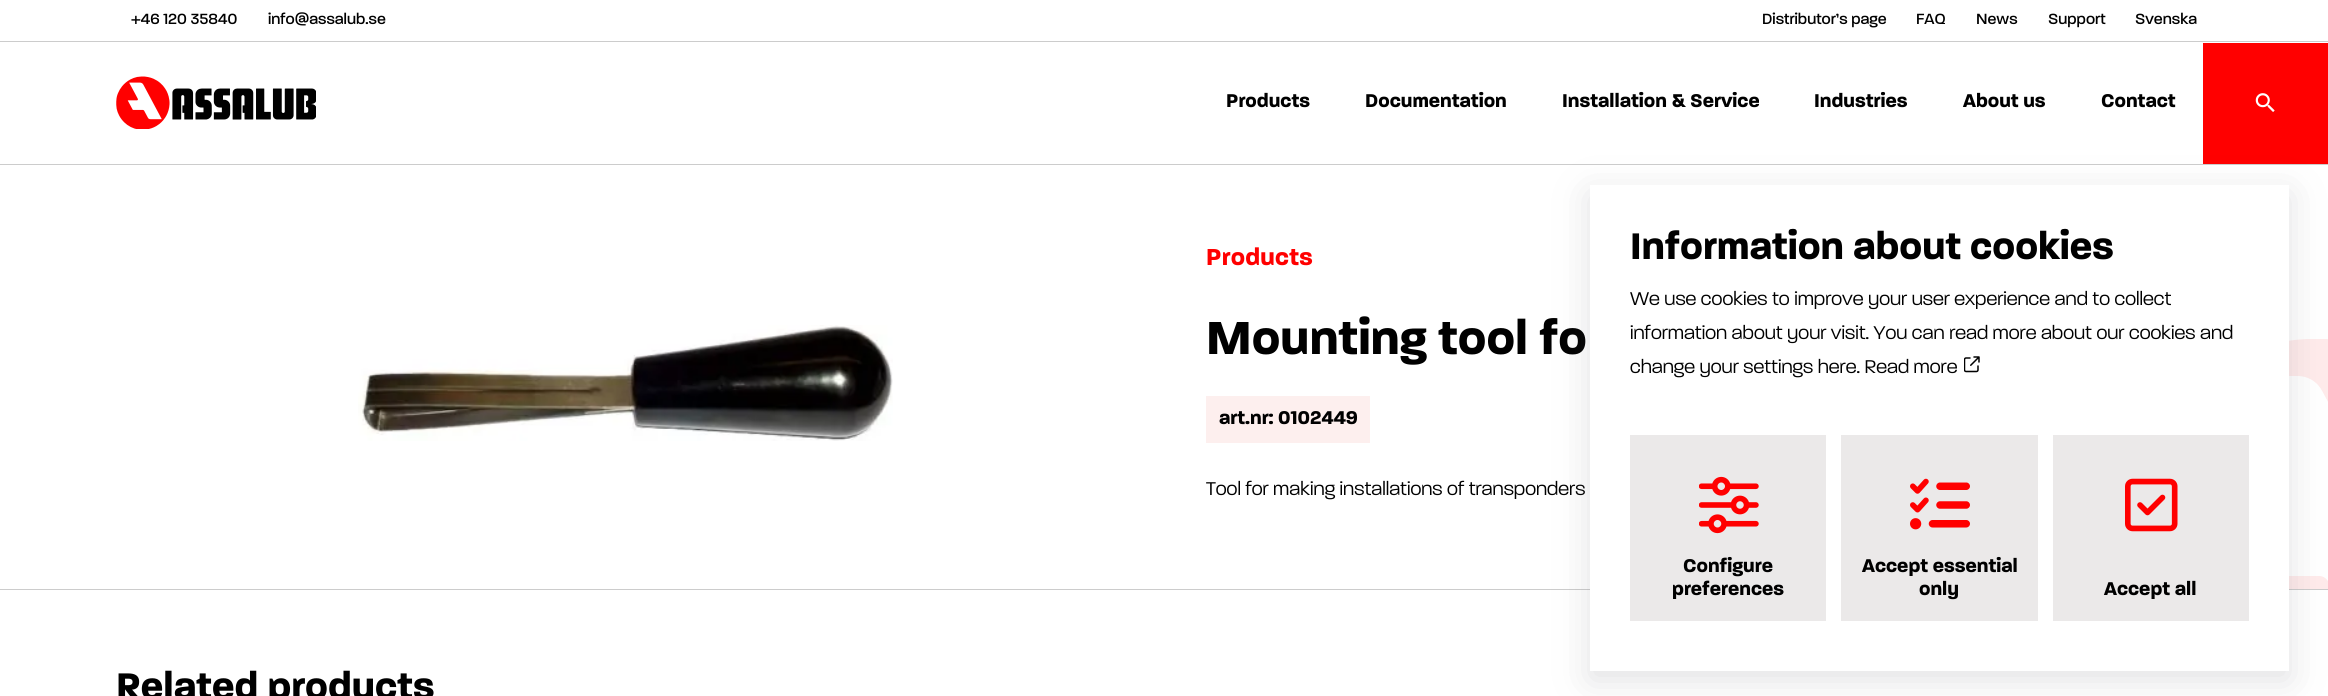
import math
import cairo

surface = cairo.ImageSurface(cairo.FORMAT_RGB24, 2328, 696)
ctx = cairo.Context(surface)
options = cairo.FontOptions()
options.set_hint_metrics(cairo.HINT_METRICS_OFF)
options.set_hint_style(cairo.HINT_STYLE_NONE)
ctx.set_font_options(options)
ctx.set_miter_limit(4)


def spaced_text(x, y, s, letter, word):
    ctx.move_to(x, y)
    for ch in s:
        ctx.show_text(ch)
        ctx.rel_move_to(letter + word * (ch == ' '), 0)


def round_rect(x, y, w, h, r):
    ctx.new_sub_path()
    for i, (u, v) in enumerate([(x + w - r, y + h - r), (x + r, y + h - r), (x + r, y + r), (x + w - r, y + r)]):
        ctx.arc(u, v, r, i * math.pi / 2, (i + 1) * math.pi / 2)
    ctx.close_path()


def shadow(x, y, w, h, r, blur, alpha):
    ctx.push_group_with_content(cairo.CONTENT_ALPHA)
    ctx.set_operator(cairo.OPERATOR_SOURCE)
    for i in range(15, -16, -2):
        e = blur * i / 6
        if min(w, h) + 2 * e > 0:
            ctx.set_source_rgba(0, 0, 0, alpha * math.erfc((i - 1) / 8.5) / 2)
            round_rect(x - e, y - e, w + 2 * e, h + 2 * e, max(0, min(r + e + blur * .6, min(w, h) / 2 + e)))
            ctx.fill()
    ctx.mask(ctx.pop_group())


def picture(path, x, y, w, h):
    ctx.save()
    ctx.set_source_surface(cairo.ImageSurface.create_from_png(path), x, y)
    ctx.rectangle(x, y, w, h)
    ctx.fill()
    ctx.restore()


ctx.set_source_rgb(1, 1, 1)
ctx.paint()
ctx.set_source_rgb(0.8, 0.8, 0.8)
ctx.rectangle(0, 41, 2328, 1)
ctx.fill()
ctx.select_font_face("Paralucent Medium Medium")
ctx.set_font_size(16)
ctx.set_source_rgb(0, 0, 0)
ctx.move_to(131, 24)
ctx.show_text("+46 120 35840")
ctx.move_to(268, 24)
ctx.show_text("info@assalub.se")
ctx.move_to(1762, 24)
ctx.show_text("Distributor’s page")
ctx.move_to(1916, 24)
ctx.show_text("FAQ")
ctx.move_to(1976, 24)
ctx.show_text("News")
ctx.move_to(2048, 24)
ctx.show_text("Support")
ctx.move_to(2135, 24)
ctx.show_text("Svenska")
ctx.set_source_rgb(0.8, 0.8, 0.8)
ctx.rectangle(0, 164, 2328, 1)
ctx.fill()
picture("img1.png", 116, 76, 200, 53)
ctx.select_font_face("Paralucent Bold", cairo.FONT_SLANT_NORMAL, cairo.FONT_WEIGHT_BOLD)
ctx.set_font_size(20)
ctx.set_source_rgb(0, 0, 0)
ctx.move_to(1226, 107)
ctx.show_text("Products")
ctx.move_to(1365, 107)
ctx.show_text("Documentation")
ctx.move_to(1562, 107)
ctx.show_text("Installation & Service")
ctx.move_to(1814, 107)
ctx.show_text("Industries")
ctx.move_to(1963, 107)
ctx.show_text("About us")
ctx.move_to(2101, 107)
ctx.show_text("Contact")
ctx.set_source_rgb(1, 0, 0)
ctx.rectangle(2203, 43, 125, 121)
ctx.fill()
picture("img2.png", 2255, 93, 20, 19)
picture("img3.png", 358, 325, 535, 116)
ctx.set_font_size(25)
spaced_text(1206, 265, "Products", 0.25, 0)
ctx.set_font_size(50)
ctx.set_source_rgb(0, 0, 0)
ctx.move_to(1206, 354)
ctx.show_text("Mounting tool fo")
ctx.set_source_rgb(0.992, 0.937, 0.933)
ctx.rectangle(1206, 396, 164, 47)
ctx.fill()
ctx.set_font_size(20)
ctx.set_source_rgb(0, 0, 0)
ctx.move_to(1219, 424)
ctx.show_text("art.nr: 0102449")
ctx.select_font_face("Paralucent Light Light")
ctx.move_to(1206, 495)
ctx.show_text("Tool for making installations of transponders")
picture("img4.png", 2289, 339, 39, 250)
ctx.set_source_rgb(0.8, 0.8, 0.8)
ctx.rectangle(0, 589, 2328, 1)
ctx.fill()
ctx.select_font_face("Paralucent Bold", cairo.FONT_SLANT_NORMAL, cairo.FONT_WEIGHT_BOLD)
ctx.set_font_size(40)
ctx.set_source_rgb(0, 0, 0)
ctx.move_to(116, 699)
ctx.show_text("Related products")
ctx.set_source_rgb(0.392, 0.392, 0.435)
shadow(1590, 194, 699, 486, 0, 18, 0.2)
ctx.set_source_rgb(1, 1, 1)
ctx.rectangle(1590, 185, 699, 486)
ctx.fill()
ctx.set_source_rgb(0, 0, 0)
ctx.move_to(1630, 259)
ctx.show_text("Information about cookies")
ctx.select_font_face("Paralucent Light Light")
ctx.set_font_size(20)
ctx.move_to(1630, 305)
ctx.show_text("We use cookies to improve your user experience and to collect")
ctx.move_to(1630, 339)
ctx.show_text("information about your visit. You can read more about our cookies and")
ctx.move_to(1630, 373)
ctx.show_text("change your settings here. Read more")
picture("img5.png", 1964, 356, 16, 17)
ctx.set_source_rgb(0.918, 0.914, 0.914)
ctx.rectangle(1630, 435, 196, 186)
ctx.fill()
picture("img6.png", 1699, 476, 60, 58)
ctx.select_font_face("Paralucent Bold", cairo.FONT_SLANT_NORMAL, cairo.FONT_WEIGHT_BOLD)
ctx.set_source_rgb(0, 0, 0)
ctx.move_to(1683, 572)
ctx.show_text("Configure")
ctx.move_to(1672, 595)
ctx.show_text("preferences")
ctx.set_source_rgb(0.918, 0.914, 0.914)
ctx.rectangle(1841, 435, 197, 186)
ctx.fill()
picture("img7.png", 1910, 478, 60, 52)
ctx.set_source_rgb(0, 0, 0)
ctx.move_to(1862, 572)
ctx.show_text("Accept essential")
ctx.move_to(1919, 595)
ctx.show_text("only")
ctx.set_source_rgb(0.918, 0.914, 0.914)
ctx.rectangle(2053, 435, 196, 186)
ctx.fill()
picture("img8.png", 2125, 478, 53, 54)
ctx.set_source_rgb(0, 0, 0)
ctx.move_to(2104, 595)
ctx.show_text("Accept all")
surface.write_to_png("page.png")
